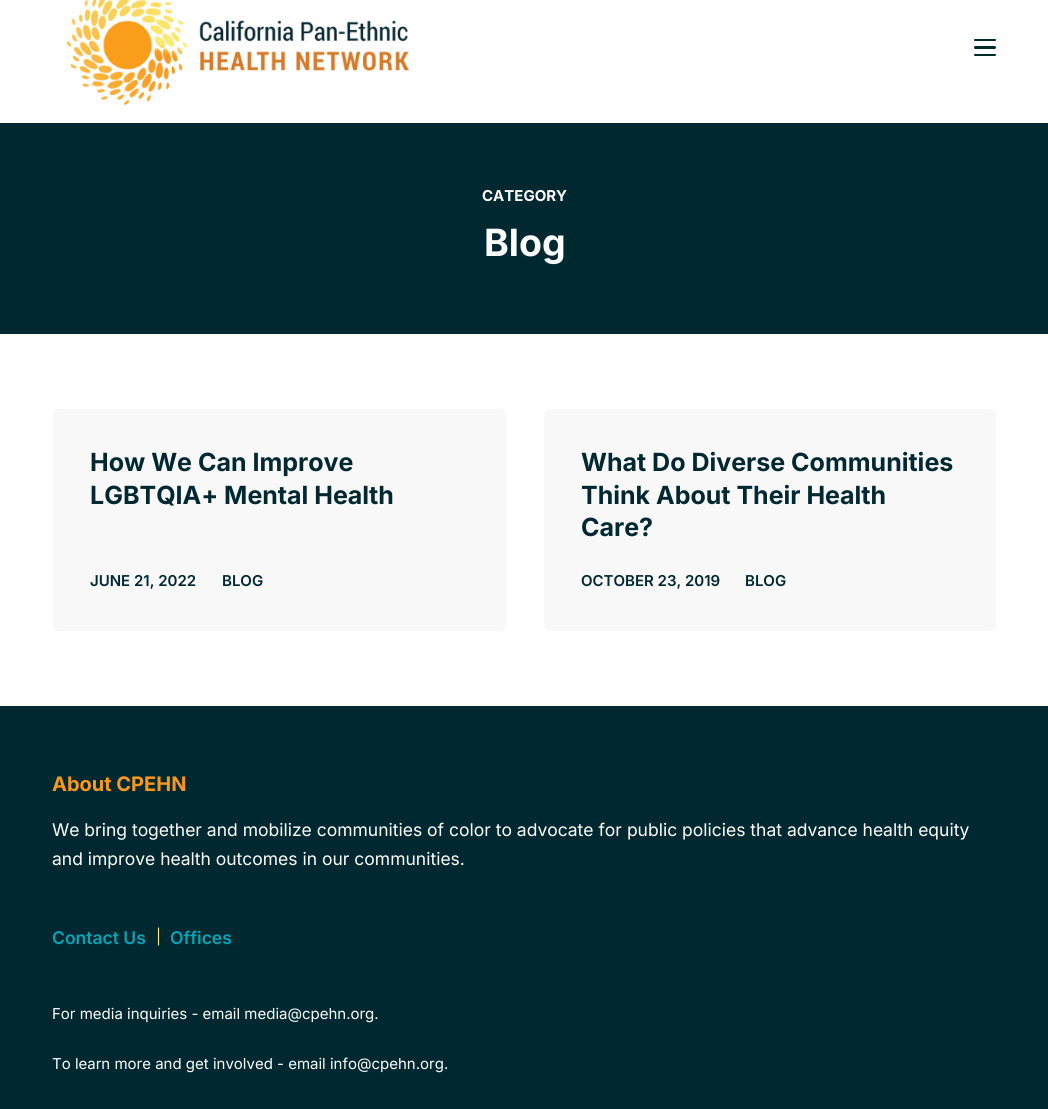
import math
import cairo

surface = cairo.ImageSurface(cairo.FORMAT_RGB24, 1048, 1109)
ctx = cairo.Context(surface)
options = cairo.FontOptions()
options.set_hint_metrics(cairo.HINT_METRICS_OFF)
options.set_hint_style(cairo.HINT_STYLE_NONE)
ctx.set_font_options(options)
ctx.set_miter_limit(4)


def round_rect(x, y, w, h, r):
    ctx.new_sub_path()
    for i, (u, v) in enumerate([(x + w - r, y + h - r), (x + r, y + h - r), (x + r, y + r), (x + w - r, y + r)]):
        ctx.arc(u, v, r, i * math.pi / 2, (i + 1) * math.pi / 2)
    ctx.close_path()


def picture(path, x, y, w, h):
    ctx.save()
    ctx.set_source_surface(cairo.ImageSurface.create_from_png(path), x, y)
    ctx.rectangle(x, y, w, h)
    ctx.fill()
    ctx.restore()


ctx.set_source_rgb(1, 1, 1)
ctx.paint()
picture("img1.png", 66, 0, 344, 105)
ctx.set_source_rgb(0, 0.157, 0.192)
round_rect(974, 39, 22, 2, 1)
ctx.fill()
round_rect(974, 46, 22, 3, 1.5)
ctx.fill()
round_rect(974, 54, 22, 2, 1)
ctx.fill()
ctx.rectangle(0, 123, 1048, 211)
ctx.fill()
ctx.select_font_face("Inter", cairo.FONT_SLANT_NORMAL, cairo.FONT_WEIGHT_BOLD)
ctx.set_font_size(15)
ctx.set_source_rgb(1, 1, 1)
ctx.move_to(482, 201)
ctx.show_text("CATEGORY")
ctx.set_font_size(37.5)
ctx.move_to(484, 256)
ctx.show_text("Blog")
ctx.set_source_rgb(0.969, 0.969, 0.969)
round_rect(53, 409, 453, 222, 6)
ctx.fill()
ctx.set_font_size(25)
ctx.set_source_rgb(0, 0.157, 0.192)
ctx.move_to(90, 471)
ctx.show_text("How We Can Improve")
ctx.move_to(90, 504)
ctx.show_text("LGBTQIA+ Mental Health")
ctx.select_font_face("Inter SemiBold")
ctx.set_font_size(15)
ctx.move_to(90, 586)
ctx.show_text("JUNE 21, 2022")
ctx.move_to(222, 586)
ctx.show_text("BLOG")
ctx.set_source_rgb(0.969, 0.969, 0.969)
round_rect(544, 409, 452, 222, 6)
ctx.fill()
ctx.select_font_face("Inter", cairo.FONT_SLANT_NORMAL, cairo.FONT_WEIGHT_BOLD)
ctx.set_font_size(25)
ctx.set_source_rgb(0, 0.157, 0.192)
ctx.move_to(581, 471)
ctx.show_text("What Do Diverse Communities")
ctx.move_to(581, 504)
ctx.show_text("Think About Their Health")
ctx.move_to(581, 536)
ctx.show_text("Care?")
ctx.select_font_face("Inter SemiBold")
ctx.set_font_size(15)
ctx.move_to(581, 586)
ctx.show_text("OCTOBER 23, 2019")
ctx.move_to(745, 586)
ctx.show_text("BLOG")
ctx.rectangle(0, 706, 1048, 403)
ctx.fill()
ctx.select_font_face("Inter", cairo.FONT_SLANT_NORMAL, cairo.FONT_WEIGHT_BOLD)
ctx.set_font_size(20)
ctx.set_source_rgb(0.973, 0.596, 0.122)
ctx.move_to(52, 791)
ctx.show_text("About CPEHN")
ctx.select_font_face("Inter")
ctx.set_font_size(17.5)
ctx.set_source_rgb(1, 1, 1)
ctx.move_to(52, 836)
ctx.show_text("We bring together and mobilize communities of color to advocate for public policies that advance health equity")
ctx.move_to(52, 865)
ctx.show_text("and improve health outcomes in our communities.")
ctx.select_font_face("Inter SemiBold")
ctx.set_source_rgb(0.008, 0.643, 0.714)
ctx.move_to(52, 944)
ctx.show_text("Contact Us")
ctx.select_font_face("Inter")
ctx.set_font_size(15)
ctx.set_source_rgb(0.996, 0.925, 0.455)
ctx.move_to(156, 942)
ctx.show_text("|")
ctx.select_font_face("Inter SemiBold")
ctx.set_font_size(17.5)
ctx.set_source_rgb(0.008, 0.643, 0.714)
ctx.move_to(170, 944)
ctx.show_text("Offices")
ctx.select_font_face("Inter")
ctx.set_font_size(15)
ctx.set_source_rgb(1, 1, 1)
ctx.move_to(52, 1019)
ctx.show_text("For media inquiries - email media@cpehn.org.")
ctx.move_to(52, 1069)
ctx.show_text("To learn more and get involved - email info@cpehn.org.")
surface.write_to_png("page.png")
